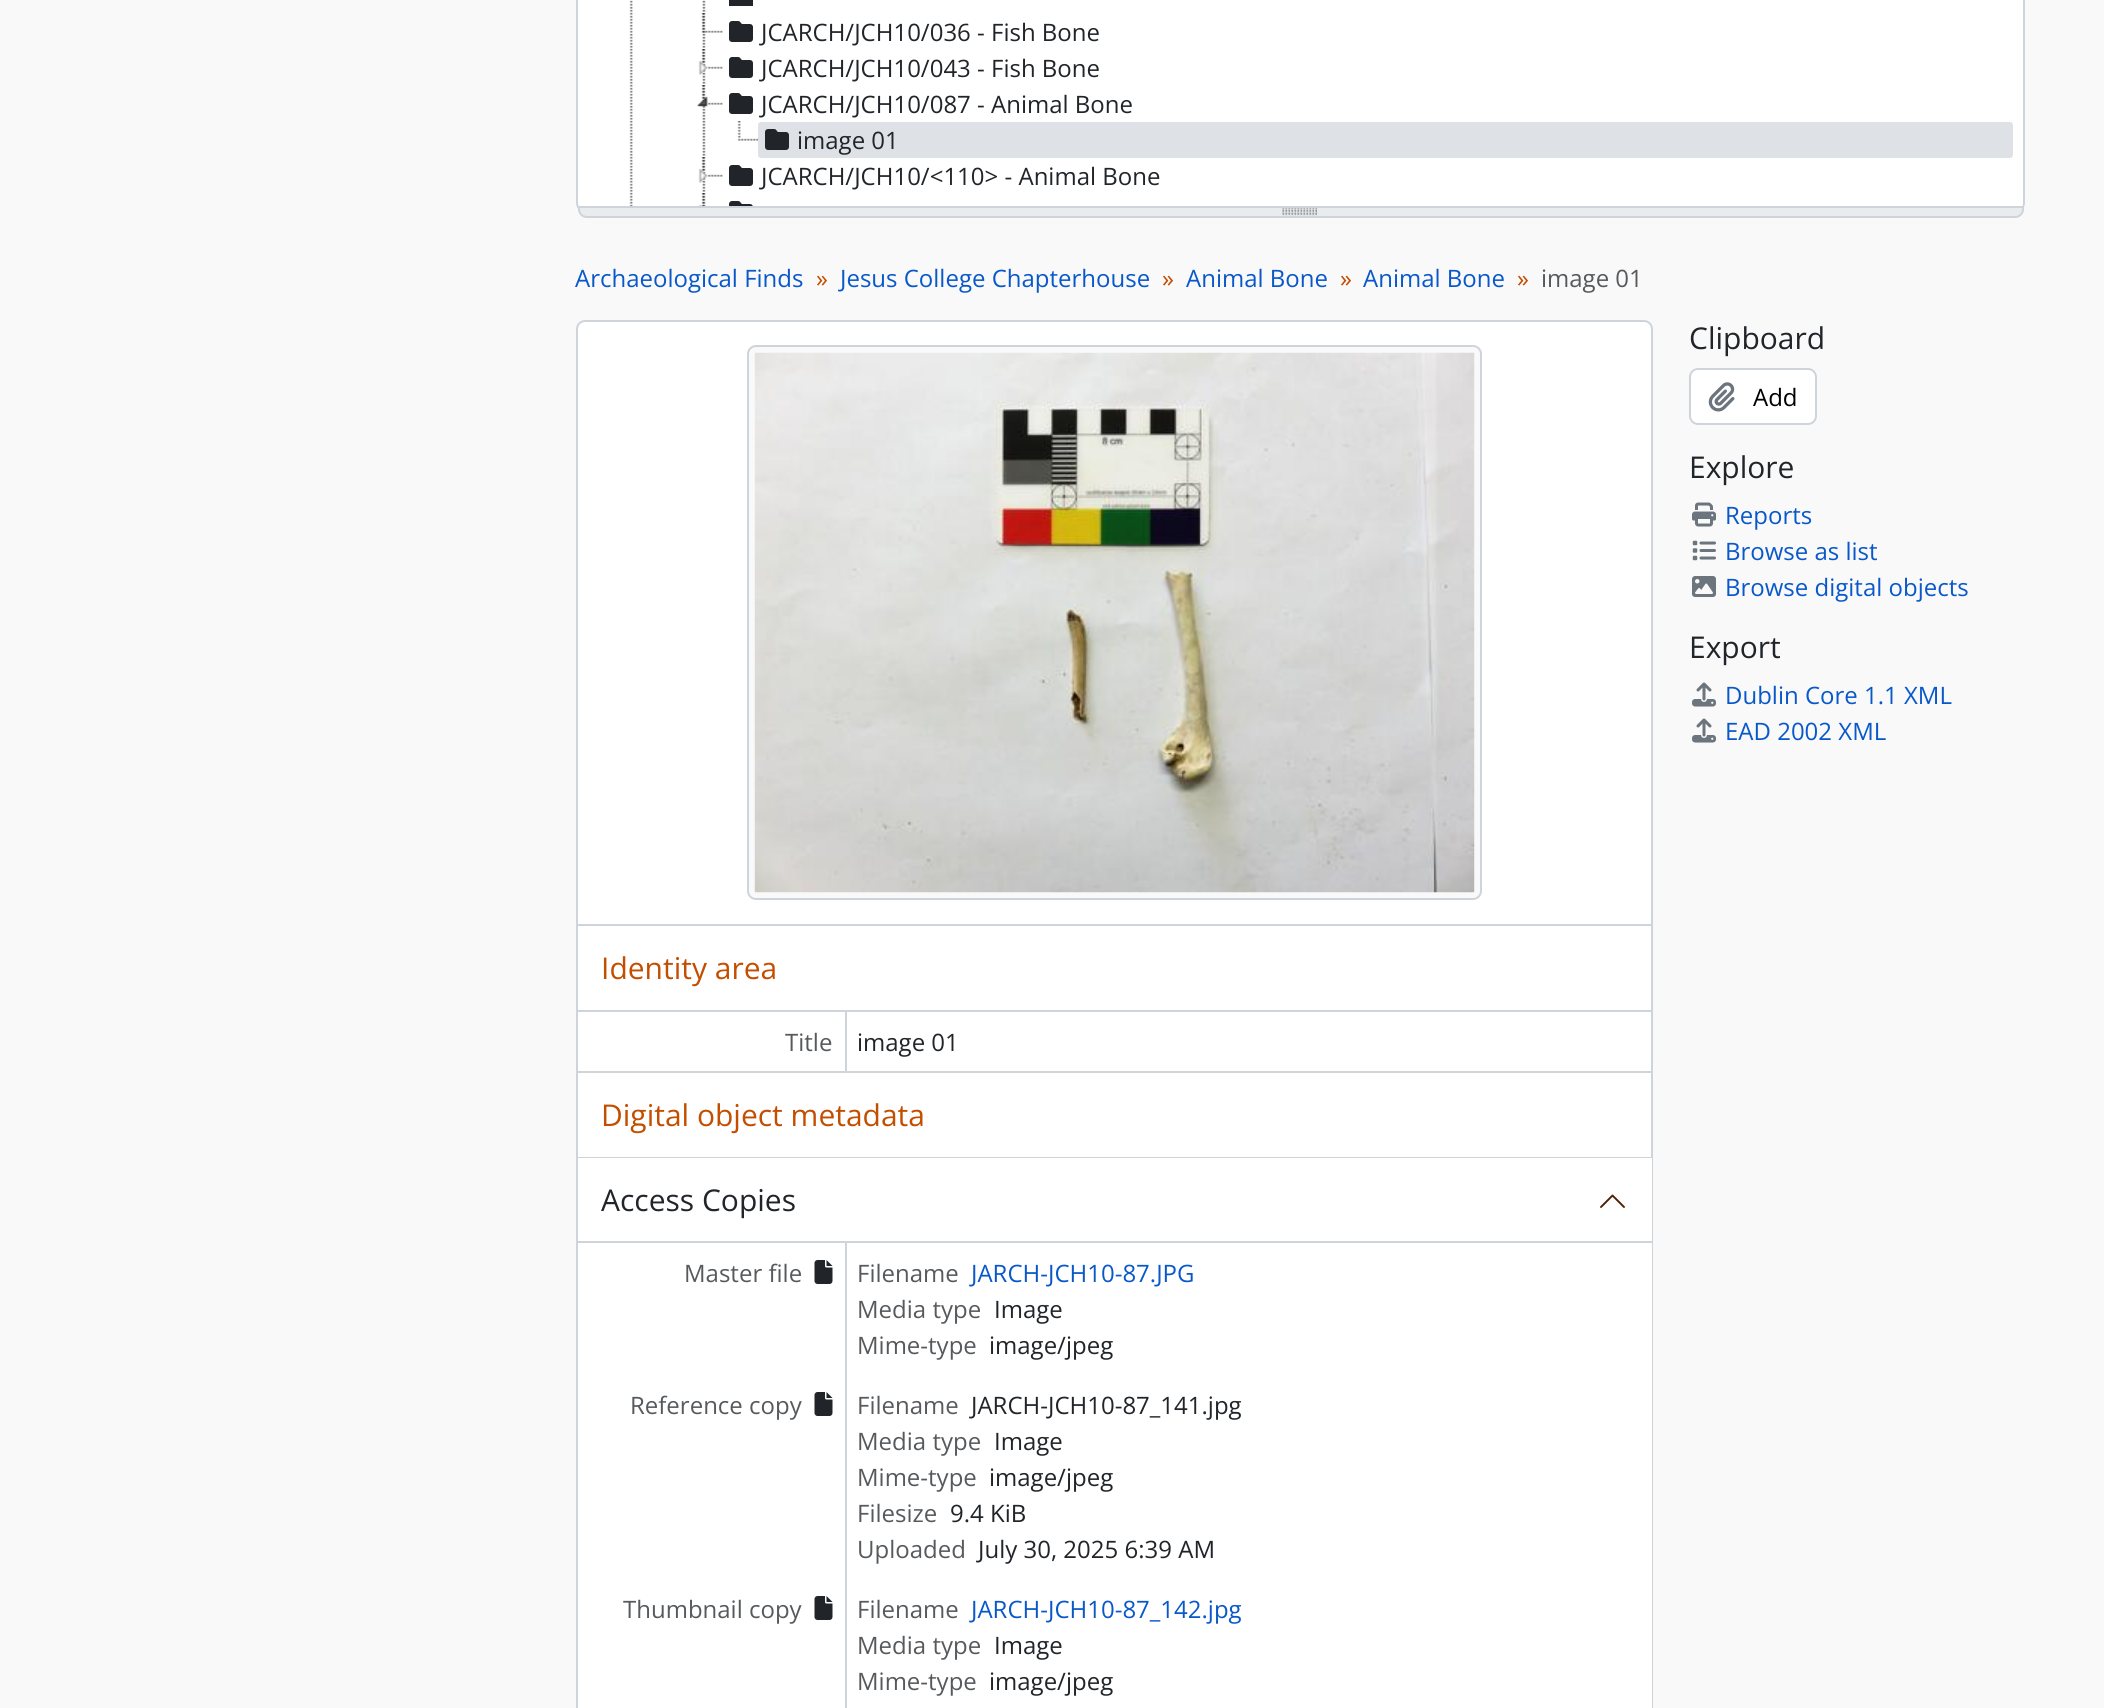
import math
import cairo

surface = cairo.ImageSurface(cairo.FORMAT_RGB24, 2104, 1708)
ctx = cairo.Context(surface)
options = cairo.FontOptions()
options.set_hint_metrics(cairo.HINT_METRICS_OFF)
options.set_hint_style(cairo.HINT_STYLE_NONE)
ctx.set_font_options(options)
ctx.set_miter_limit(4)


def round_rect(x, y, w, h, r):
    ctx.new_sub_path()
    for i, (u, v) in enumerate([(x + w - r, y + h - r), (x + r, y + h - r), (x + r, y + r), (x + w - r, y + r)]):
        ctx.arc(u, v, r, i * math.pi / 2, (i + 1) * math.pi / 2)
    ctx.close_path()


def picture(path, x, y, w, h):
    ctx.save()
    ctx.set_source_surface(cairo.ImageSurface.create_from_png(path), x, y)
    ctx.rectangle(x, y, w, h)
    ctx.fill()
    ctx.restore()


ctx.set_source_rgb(0.973, 0.976, 0.98)
ctx.paint()
ctx.set_source_rgb(1, 1, 1)
round_rect(577, -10, 1447, 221, 8)
ctx.fill_preserve()
ctx.set_source_rgb(0.808, 0.831, 0.855)
ctx.stroke()
picture("img1.png", 629, 0, 4, 206)
picture("img2.png", 702, 0, 4, 12)
ctx.set_source_rgb(0.129, 0.145, 0.161)
ctx.rectangle(729, 0, 24, 6)
ctx.fill()
picture("img3.png", 702, 13, 4, 35)
picture("img4.png", 701, 13, 22, 20)
picture("img5.png", 729, 21, 24, 21)
ctx.select_font_face("Open Sans")
ctx.set_font_size(24)
ctx.move_to(761, 41)
ctx.show_text("JCARCH/JCH10/036 - Fish Bone")
picture("img3.png", 702, 49, 4, 35)
picture("img6.png", 698, 49, 25, 26)
picture("img5.png", 729, 57, 24, 21)
ctx.move_to(761, 77)
ctx.show_text("JCARCH/JCH10/043 - Fish Bone")
picture("img7.png", 702, 85, 4, 71)
picture("img8.png", 697, 85, 26, 22)
picture("img5.png", 729, 93, 24, 21)
ctx.move_to(761, 113)
ctx.show_text("JCARCH/JCH10/087 - Animal Bone")
picture("img9.png", 737, 121, 21, 20)
ctx.set_source_rgb(0.871, 0.886, 0.902)
round_rect(758, 122, 1255, 36, 3)
ctx.fill()
picture("img10.png", 765, 129, 24, 21)
ctx.set_source_rgb(0.129, 0.145, 0.161)
ctx.move_to(797, 149)
ctx.show_text("image 01")
picture("img3.png", 702, 157, 4, 35)
picture("img6.png", 698, 157, 25, 26)
picture("img5.png", 729, 165, 24, 21)
ctx.move_to(761, 185)
ctx.show_text("JCARCH/JCH10/<110> - Animal Bone")
picture("img11.png", 702, 193, 4, 13)
picture("img12.png", 698, 193, 7, 13)
picture("img13.png", 729, 201, 24, 5)
ctx.set_source_rgb(0.914, 0.925, 0.937)
ctx.new_path()
ctx.move_to(578, 206)
ctx.line_to(2024, 206)
ctx.line_to(2024, 209)
ctx.curve_to(2024, 214, 2020, 218, 2015, 218)
ctx.line_to(587, 218)
ctx.curve_to(582, 218, 578, 214, 578, 209)
ctx.close_path()
ctx.fill()
picture("img14.png", 1282, 208, 35, 8)
ctx.new_path()
ctx.move_to(579, 207)
ctx.line_to(2023, 207)
ctx.line_to(2023, 209)
ctx.curve_to(2023, 213.5, 2019.5, 217, 2015, 217)
ctx.line_to(587, 217)
ctx.curve_to(582.5, 217, 579, 213.5, 579, 209)
ctx.close_path()
ctx.set_source_rgb(0.808, 0.831, 0.855)
ctx.stroke()
ctx.set_source_rgb(0.039, 0.345, 0.792)
ctx.move_to(575, 287)
ctx.show_text("Archaeological Finds")
ctx.set_source_rgb(0.769, 0.306, 0)
ctx.move_to(816, 287)
ctx.show_text("»")
ctx.set_source_rgb(0.039, 0.345, 0.792)
ctx.move_to(840, 287)
ctx.show_text("Jesus College Chapterhouse")
ctx.set_source_rgb(0.769, 0.306, 0)
ctx.move_to(1162, 287)
ctx.show_text("»")
ctx.set_source_rgb(0.039, 0.345, 0.792)
ctx.move_to(1186, 287)
ctx.show_text("Animal Bone")
ctx.set_source_rgb(0.769, 0.306, 0)
ctx.move_to(1340, 287)
ctx.show_text("»")
ctx.set_source_rgb(0.039, 0.345, 0.792)
ctx.move_to(1363, 287)
ctx.show_text("Animal Bone")
ctx.set_source_rgb(0.769, 0.306, 0)
ctx.move_to(1517, 287)
ctx.show_text("»")
ctx.set_source_rgb(0.341, 0.353, 0.365)
ctx.move_to(1541, 287)
ctx.show_text("image 01")
ctx.set_font_size(30)
ctx.set_source_rgb(0.129, 0.145, 0.161)
ctx.move_to(1689, 349)
ctx.show_text("Clipboard")
ctx.set_source_rgb(1, 1, 1)
round_rect(1690, 369, 126, 55, 8)
ctx.fill_preserve()
ctx.set_source_rgb(0.808, 0.831, 0.855)
ctx.stroke()
picture("img15.png", 1708, 382, 27, 30)
ctx.set_font_size(24)
ctx.set_source_rgb(0, 0, 0)
ctx.move_to(1753, 406)
ctx.show_text("Add")
ctx.set_font_size(30)
ctx.set_source_rgb(0.129, 0.145, 0.161)
ctx.move_to(1689, 478)
ctx.show_text("Explore")
picture("img16.png", 1692, 502, 24, 25)
ctx.set_font_size(24)
ctx.set_source_rgb(0.039, 0.345, 0.792)
ctx.move_to(1725, 524)
ctx.show_text("Reports")
picture("img17.png", 1692, 540, 24, 21)
ctx.move_to(1725, 560)
ctx.show_text("Browse as list")
picture("img18.png", 1692, 576, 24, 21)
ctx.move_to(1725, 596)
ctx.show_text("Browse digital objects")
ctx.set_font_size(30)
ctx.set_source_rgb(0.129, 0.145, 0.161)
ctx.move_to(1689, 658)
ctx.show_text("Export")
picture("img19.png", 1692, 682, 24, 25)
ctx.set_font_size(24)
ctx.set_source_rgb(0.039, 0.345, 0.792)
ctx.move_to(1725, 704)
ctx.show_text("Dublin Core 1.1 XML")
picture("img19.png", 1692, 718, 24, 25)
ctx.move_to(1725, 740)
ctx.show_text("EAD 2002 XML")
ctx.set_source_rgb(1, 1, 1)
round_rect(577, 321, 1075, 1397, 8)
ctx.fill_preserve()
ctx.set_source_rgb(0.808, 0.831, 0.855)
ctx.stroke()
ctx.rectangle(578, 924, 1074, 2)
ctx.fill()
ctx.set_source_rgb(0.973, 0.976, 0.98)
round_rect(748, 346, 733, 553, 8)
ctx.fill_preserve()
ctx.set_source_rgb(0.808, 0.831, 0.855)
ctx.stroke()
picture("img20.png", 754, 352, 721, 541)
ctx.rectangle(578, 1071, 1074, 2)
ctx.fill()
ctx.rectangle(578, 1010, 1074, 2)
ctx.fill()
ctx.set_font_size(30)
ctx.set_source_rgb(0.769, 0.306, 0)
ctx.move_to(601, 979)
ctx.show_text("Identity area")
ctx.set_source_rgb(0.808, 0.831, 0.855)
ctx.rectangle(845, 1011, 2, 60)
ctx.fill()
ctx.set_font_size(24)
ctx.set_source_rgb(0.341, 0.353, 0.365)
ctx.move_to(785, 1051)
ctx.show_text("Title")
ctx.set_source_rgb(0.129, 0.145, 0.161)
ctx.move_to(857, 1051)
ctx.show_text("image 01")
ctx.set_source_rgb(0.808, 0.831, 0.855)
ctx.rectangle(578, 1157, 1074, 1)
ctx.fill()
ctx.set_font_size(30)
ctx.set_source_rgb(0.769, 0.306, 0)
ctx.move_to(601, 1126)
ctx.show_text("Digital object metadata")
ctx.set_source_rgb(1, 1, 1)
ctx.rectangle(1651, 1158, 1, 550)
ctx.fill()
ctx.set_source_rgb(0.808, 0.831, 0.855)
ctx.rectangle(845, 1242, 2, 466)
ctx.fill()
ctx.rectangle(578, 1241, 1074, 2)
ctx.fill()
ctx.set_source_rgb(0.129, 0.145, 0.161)
ctx.move_to(601, 1211)
ctx.show_text("Access Copies")
ctx.new_path()
ctx.move_to(1624, 1207)
ctx.line_to(1612.5, 1195.5)
ctx.line_to(1601, 1207)
ctx.set_source_rgb(0.306, 0.122, 0)
ctx.set_line_width(1.9)
ctx.set_line_cap(cairo.LINE_CAP_ROUND)
ctx.set_line_join(cairo.LINE_JOIN_ROUND)
ctx.stroke()
ctx.set_font_size(24)
ctx.set_source_rgb(0.341, 0.353, 0.365)
ctx.move_to(684, 1282)
ctx.show_text("Master file")
picture("img21.png", 814, 1260, 19, 24)
ctx.move_to(857, 1282)
ctx.show_text("Filename")
ctx.set_source_rgb(0.039, 0.345, 0.792)
ctx.move_to(971, 1282)
ctx.show_text("JARCH-JCH10-87.JPG")
ctx.set_source_rgb(0.341, 0.353, 0.365)
ctx.move_to(857, 1318)
ctx.show_text("Media type")
ctx.set_source_rgb(0.129, 0.145, 0.161)
ctx.move_to(994, 1318)
ctx.show_text("Image")
ctx.set_source_rgb(0.341, 0.353, 0.365)
ctx.move_to(857, 1354)
ctx.show_text("Mime-type")
ctx.set_source_rgb(0.129, 0.145, 0.161)
ctx.move_to(989, 1354)
ctx.show_text("image/jpeg")
ctx.set_source_rgb(0.341, 0.353, 0.365)
ctx.move_to(630, 1414)
ctx.show_text("Reference copy")
picture("img21.png", 814, 1392, 19, 24)
ctx.move_to(857, 1414)
ctx.show_text("Filename")
ctx.set_source_rgb(0.129, 0.145, 0.161)
ctx.move_to(971, 1414)
ctx.show_text("JARCH-JCH10-87_141.jpg")
ctx.set_source_rgb(0.341, 0.353, 0.365)
ctx.move_to(857, 1450)
ctx.show_text("Media type")
ctx.set_source_rgb(0.129, 0.145, 0.161)
ctx.move_to(994, 1450)
ctx.show_text("Image")
ctx.set_source_rgb(0.341, 0.353, 0.365)
ctx.move_to(857, 1486)
ctx.show_text("Mime-type")
ctx.set_source_rgb(0.129, 0.145, 0.161)
ctx.move_to(989, 1486)
ctx.show_text("image/jpeg")
ctx.set_source_rgb(0.341, 0.353, 0.365)
ctx.move_to(857, 1522)
ctx.show_text("Filesize")
ctx.set_source_rgb(0.129, 0.145, 0.161)
ctx.move_to(950, 1522)
ctx.show_text("9.4 KiB")
ctx.set_source_rgb(0.341, 0.353, 0.365)
ctx.move_to(857, 1558)
ctx.show_text("Uploaded")
ctx.set_source_rgb(0.129, 0.145, 0.161)
ctx.move_to(978, 1558)
ctx.show_text("July 30, 2025 6:39 AM")
ctx.set_source_rgb(0.341, 0.353, 0.365)
ctx.move_to(623, 1618)
ctx.show_text("Thumbnail copy")
picture("img21.png", 814, 1596, 19, 24)
ctx.move_to(857, 1618)
ctx.show_text("Filename")
ctx.set_source_rgb(0.039, 0.345, 0.792)
ctx.move_to(971, 1618)
ctx.show_text("JARCH-JCH10-87_142.jpg")
ctx.set_source_rgb(0.341, 0.353, 0.365)
ctx.move_to(857, 1654)
ctx.show_text("Media type")
ctx.set_source_rgb(0.129, 0.145, 0.161)
ctx.move_to(994, 1654)
ctx.show_text("Image")
ctx.set_source_rgb(0.341, 0.353, 0.365)
ctx.move_to(857, 1690)
ctx.show_text("Mime-type")
ctx.set_source_rgb(0.129, 0.145, 0.161)
ctx.move_to(989, 1690)
ctx.show_text("image/jpeg")
surface.write_to_png("page.png")
